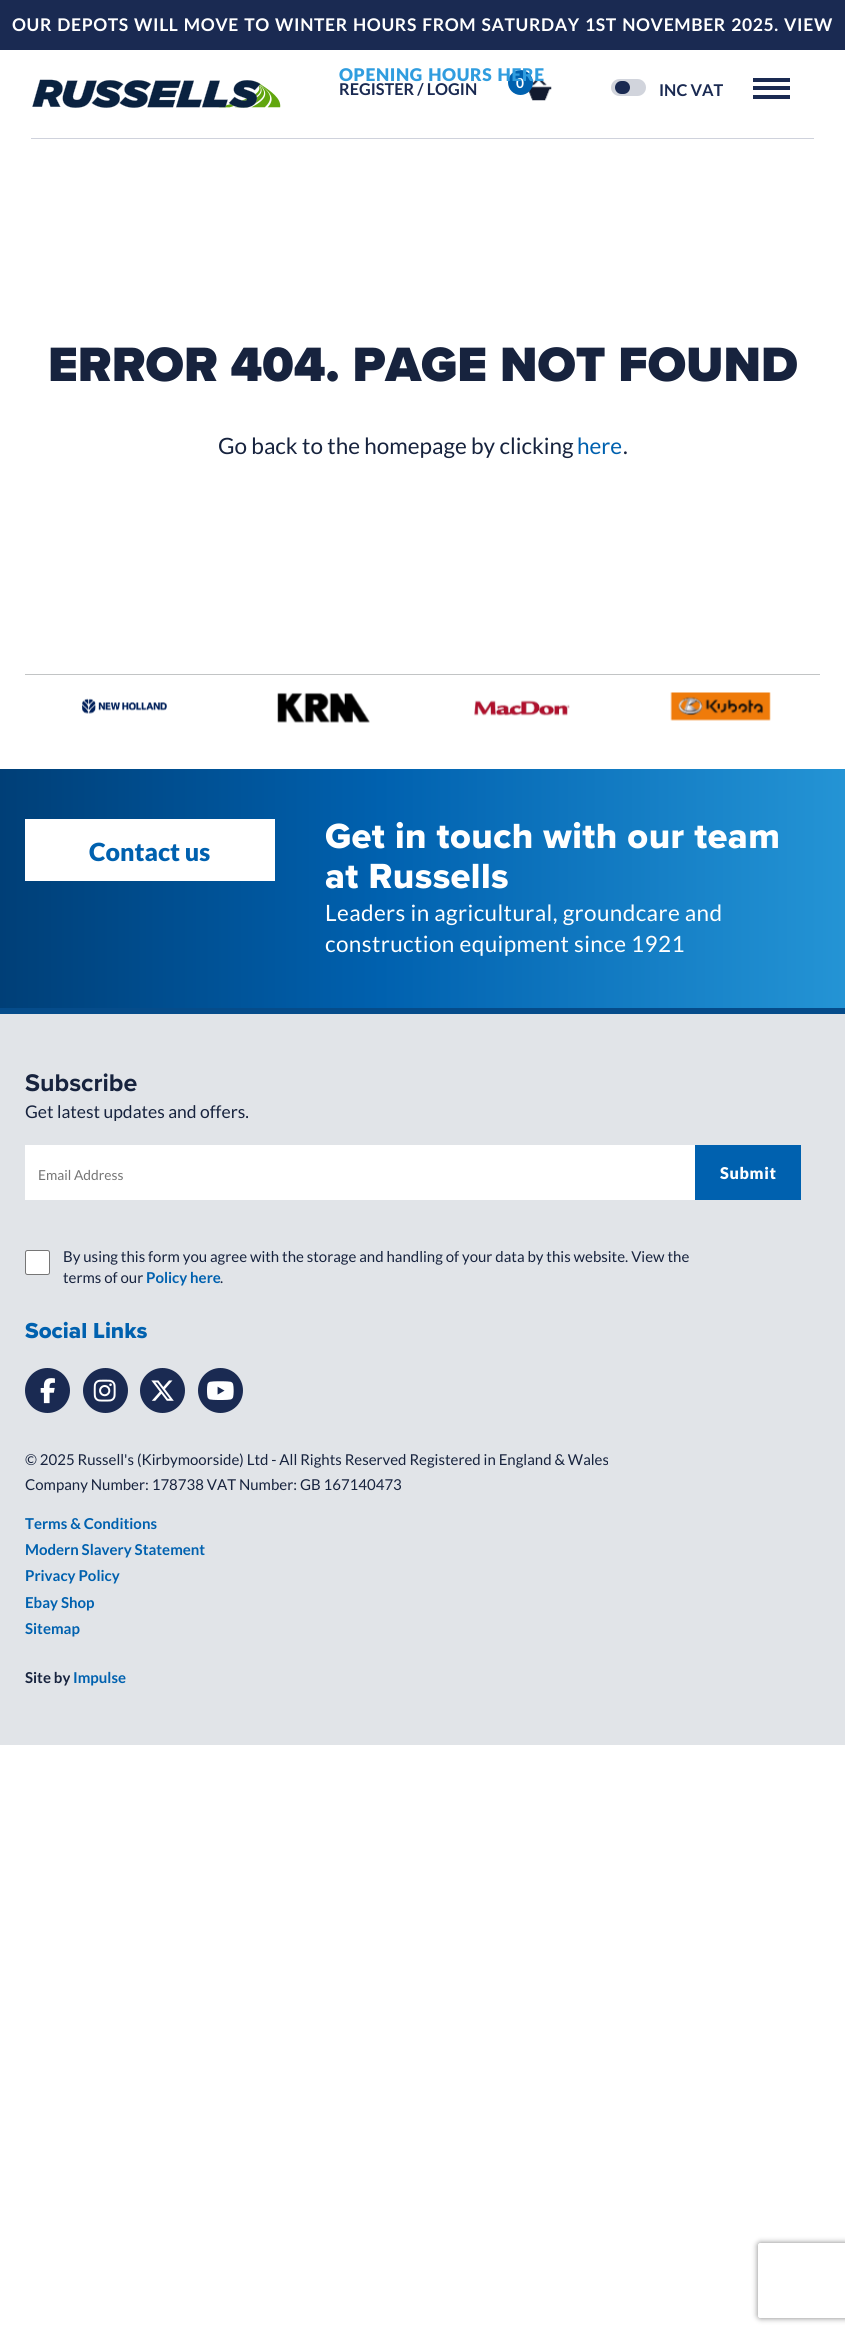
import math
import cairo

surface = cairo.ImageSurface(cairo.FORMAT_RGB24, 845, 2335)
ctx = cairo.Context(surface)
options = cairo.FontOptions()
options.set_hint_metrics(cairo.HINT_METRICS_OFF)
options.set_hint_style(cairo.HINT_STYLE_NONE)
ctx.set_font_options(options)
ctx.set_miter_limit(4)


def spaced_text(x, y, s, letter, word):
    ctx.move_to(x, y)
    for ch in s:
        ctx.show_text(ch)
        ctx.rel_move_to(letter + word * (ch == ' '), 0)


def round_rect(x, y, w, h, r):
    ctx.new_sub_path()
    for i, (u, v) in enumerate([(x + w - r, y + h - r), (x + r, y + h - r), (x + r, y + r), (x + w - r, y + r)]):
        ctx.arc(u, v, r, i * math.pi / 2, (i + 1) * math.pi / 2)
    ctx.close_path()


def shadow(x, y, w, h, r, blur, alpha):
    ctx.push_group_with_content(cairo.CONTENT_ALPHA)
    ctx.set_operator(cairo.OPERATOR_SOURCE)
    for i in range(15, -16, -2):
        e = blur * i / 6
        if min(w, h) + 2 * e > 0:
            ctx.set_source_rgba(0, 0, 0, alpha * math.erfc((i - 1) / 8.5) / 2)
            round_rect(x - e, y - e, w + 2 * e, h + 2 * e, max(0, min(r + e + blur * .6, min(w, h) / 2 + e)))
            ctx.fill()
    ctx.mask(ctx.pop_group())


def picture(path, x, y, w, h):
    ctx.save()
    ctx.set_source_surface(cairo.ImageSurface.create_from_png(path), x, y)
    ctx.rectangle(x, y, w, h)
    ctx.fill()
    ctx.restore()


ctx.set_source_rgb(1, 1, 1)
ctx.paint()
ctx.set_source_rgb(0.102, 0.165, 0.322)
ctx.rectangle(0, 0, 845, 50)
ctx.fill()
ctx.select_font_face("Lato", cairo.FONT_SLANT_NORMAL, cairo.FONT_WEIGHT_BOLD)
ctx.set_font_size(17.5)
ctx.set_source_rgb(1, 1, 1)
spaced_text(12, 31, "OUR DEPOTS WILL MOVE TO WINTER HOURS FROM SATURDAY 1ST NOVEMBER 2025. VIEW", 0.62, 1.25)
picture("img2.png", 528, 79, 24, 22)
ctx.set_source_rgb(0, 0.38, 0.686)
ctx.arc(520.5, 82.5, 12.5, 0, 2 * math.pi)
ctx.fill()
ctx.set_font_size(13.75)
ctx.set_source_rgb(1, 1, 1)
ctx.move_to(516, 88)
ctx.show_text("0")
ctx.select_font_face("Lato Black")
ctx.set_font_size(17.5)
ctx.set_source_rgb(0.188, 0.616, 0.875)
spaced_text(339, 81, "OPENING HOURS HERE", 0.62, 1.25)
ctx.set_source_rgb(0.812, 0.824, 0.863)
ctx.rectangle(31, 138, 783, 1)
ctx.fill()
picture("img1.png", 32, 79, 249, 29)
ctx.select_font_face("Lato", cairo.FONT_SLANT_NORMAL, cairo.FONT_WEIGHT_BOLD)
ctx.set_font_size(16.25)
ctx.set_source_rgb(0.102, 0.165, 0.322)
ctx.move_to(339, 95)
ctx.show_text("REGISTER / LOGIN")
ctx.set_source_rgb(0.82, 0.831, 0.863)
round_rect(611, 79, 35, 17, 8.5)
ctx.fill()
ctx.set_source_rgb(0.102, 0.165, 0.322)
round_rect(615, 81, 15, 13, 6.5)
ctx.fill()
ctx.move_to(659, 96)
ctx.show_text("INC VAT")
ctx.rectangle(753, 78, 37, 4)
ctx.fill()
ctx.rectangle(753, 86, 37, 4)
ctx.fill()
ctx.rectangle(753, 95, 37, 4)
ctx.fill()
ctx.select_font_face("Proxima Nova Black")
ctx.set_font_size(50)
ctx.set_source_rgb(0.09, 0.137, 0.243)
ctx.move_to(48, 381)
ctx.show_text("ERROR 404. PAGE NOT FOUND")
ctx.select_font_face("Lato")
ctx.set_font_size(22.5)
ctx.move_to(218, 454)
ctx.show_text("Go back to the homepage by clicking")
ctx.set_source_rgb(0, 0.38, 0.686)
ctx.move_to(577, 454)
ctx.show_text("here")
ctx.set_source_rgb(0.09, 0.137, 0.243)
ctx.move_to(623, 454)
ctx.show_text(".")
ctx.set_source_rgb(0.761, 0.769, 0.773)
ctx.rectangle(25, 674, 795, 1)
ctx.fill()
picture("img3.png", 82, 698, 85, 16)
picture("img4.png", 277, 692, 93, 31)
picture("img5.png", 474, 700, 96, 16)
picture("img6.png", 670, 692, 101, 29)
gradient = cairo.LinearGradient(0, 888, 845, 888)
gradient.add_color_stop_rgba(0, 0, 0.247, 0.467, 1)
gradient.add_color_stop_rgba(0.45, 0, 0.38, 0.686, 1)
gradient.add_color_stop_rgba(1, 0.141, 0.58, 0.835, 1)
ctx.set_source(gradient)
ctx.rectangle(0, 769, 845, 239)
ctx.fill()
ctx.set_source_rgb(0.02, 0.298, 0.545)
ctx.rectangle(0, 1008, 845, 6)
ctx.fill()
ctx.set_source_rgb(1, 1, 1)
ctx.rectangle(25, 819, 250, 62)
ctx.fill()
ctx.select_font_face("Lato Black")
ctx.set_font_size(25)
ctx.set_source_rgb(0, 0.38, 0.686)
ctx.move_to(89, 861)
ctx.show_text("Contact us")
ctx.select_font_face("Proxima Nova ExtraBold")
ctx.set_font_size(36.25)
ctx.set_source_rgb(1, 1, 1)
spaced_text(325, 848, "Get in touch with our team", 0.4, 0)
spaced_text(325, 888, "at Russells", 0.4, 0)
ctx.select_font_face("Lato")
ctx.set_font_size(22.5)
spaced_text(325, 921, "Leaders in agricultural, groundcare and", 0.4, 0)
spaced_text(325, 952, "construction equipment since 1921", 0.4, 0)
ctx.set_source_rgb(0.882, 0.894, 0.91)
ctx.rectangle(0, 1014, 845, 731)
ctx.fill()
ctx.select_font_face("Proxima Nova", cairo.FONT_SLANT_NORMAL, cairo.FONT_WEIGHT_BOLD)
ctx.set_font_size(25)
ctx.set_source_rgb(0.09, 0.137, 0.243)
ctx.move_to(25, 1091)
ctx.show_text("Subscribe")
ctx.select_font_face("Lato")
ctx.set_font_size(17.5)
ctx.move_to(25, 1118)
ctx.show_text("Get latest updates and offers.")
ctx.set_source_rgb(1, 1, 1)
ctx.rectangle(25, 1145, 670, 55)
ctx.fill()
ctx.set_font_size(13.75)
ctx.set_source_rgb(0.459, 0.459, 0.459)
ctx.move_to(38, 1180)
ctx.show_text("Email Address")
ctx.set_source_rgb(0, 0.38, 0.686)
ctx.rectangle(695, 1145, 106, 55)
ctx.fill()
ctx.select_font_face("Lato Black")
ctx.set_font_size(16.25)
ctx.set_source_rgb(1, 1, 1)
spaced_text(720, 1179, "Submit", 0.62, 0)
round_rect(25.5, 1250.5, 24, 24, 2)
ctx.fill_preserve()
ctx.set_source_rgb(0.463, 0.463, 0.463)
ctx.set_line_width(1)
ctx.stroke()
ctx.select_font_face("Lato")
ctx.set_font_size(15)
ctx.set_source_rgb(0.09, 0.137, 0.243)
ctx.move_to(63, 1262)
ctx.show_text("By using this form you agree with the storage and handling of your data by this website. View the")
ctx.move_to(63, 1283)
ctx.show_text("terms of our")
ctx.select_font_face("Lato", cairo.FONT_SLANT_NORMAL, cairo.FONT_WEIGHT_BOLD)
ctx.set_source_rgb(0, 0.38, 0.686)
ctx.move_to(146, 1283)
ctx.show_text("Policy here")
ctx.select_font_face("Lato")
ctx.set_source_rgb(0.09, 0.137, 0.243)
ctx.move_to(220, 1283)
ctx.show_text(".")
ctx.select_font_face("Proxima Nova ExtraBold")
ctx.set_font_size(22.5)
ctx.set_source_rgb(0, 0.38, 0.686)
ctx.move_to(25, 1338)
ctx.show_text("Social Links")
ctx.set_source_rgb(0.102, 0.165, 0.322)
ctx.new_path()
ctx.arc(47.5, 1390.5, 22.5, 0, 2 * math.pi)
ctx.fill()
picture("img7.png", 40, 1378, 15, 26)
ctx.arc(105.5, 1390.5, 22.5, 0, 2 * math.pi)
ctx.fill()
picture("img8.png", 93, 1379, 23, 23)
ctx.arc(162.5, 1390.5, 22.5, 0, 2 * math.pi)
ctx.fill()
picture("img9.png", 151, 1380, 23, 21)
ctx.arc(220.5, 1390.5, 22.5, 0, 2 * math.pi)
ctx.fill()
picture("img10.png", 207, 1381, 27, 19)
ctx.select_font_face("Lato")
ctx.set_font_size(15)
ctx.set_source_rgb(0.09, 0.137, 0.243)
ctx.move_to(25, 1465)
ctx.show_text("© 2025 Russell's (Kirbymoorside) Ltd - All Rights Reserved Registered in England & Wales")
ctx.move_to(25, 1490)
ctx.show_text("Company Number: 178738 VAT Number: GB 167140473")
ctx.select_font_face("Lato", cairo.FONT_SLANT_NORMAL, cairo.FONT_WEIGHT_BOLD)
ctx.set_source_rgb(0, 0.38, 0.686)
ctx.move_to(25, 1529)
ctx.show_text("Terms & Conditions")
ctx.move_to(25, 1555)
ctx.show_text("Modern Slavery Statement")
ctx.move_to(25, 1581)
ctx.show_text("Privacy Policy")
ctx.move_to(25, 1608)
ctx.show_text("Ebay Shop")
ctx.move_to(25, 1634)
ctx.show_text("Sitemap")
ctx.set_source_rgb(0.09, 0.137, 0.243)
ctx.move_to(25, 1683)
ctx.show_text("Site by")
ctx.set_source_rgb(0, 0.38, 0.686)
ctx.move_to(73, 1683)
ctx.show_text("Impulse")
ctx.save()
ctx.set_fill_rule(cairo.FILL_RULE_EVEN_ODD)
ctx.new_path()
ctx.move_to(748, 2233)
ctx.line_to(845, 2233)
ctx.line_to(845, 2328)
ctx.line_to(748, 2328)
ctx.close_path()
ctx.move_to(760.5, 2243)
ctx.line_to(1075.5, 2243)
ctx.curve_to(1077, 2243, 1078, 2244, 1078, 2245.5)
ctx.line_to(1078, 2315.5)
ctx.curve_to(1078, 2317, 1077, 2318, 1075.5, 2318)
ctx.line_to(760.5, 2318)
ctx.curve_to(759, 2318, 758, 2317, 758, 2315.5)
ctx.line_to(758, 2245.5)
ctx.curve_to(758, 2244, 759, 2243, 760.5, 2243)
ctx.close_path()
ctx.clip()
ctx.set_source_rgb(0.502, 0.502, 0.502)
shadow(758, 2243, 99, 75, 2.5, 3, 1)
ctx.restore()
surface.write_to_png("page.png")
